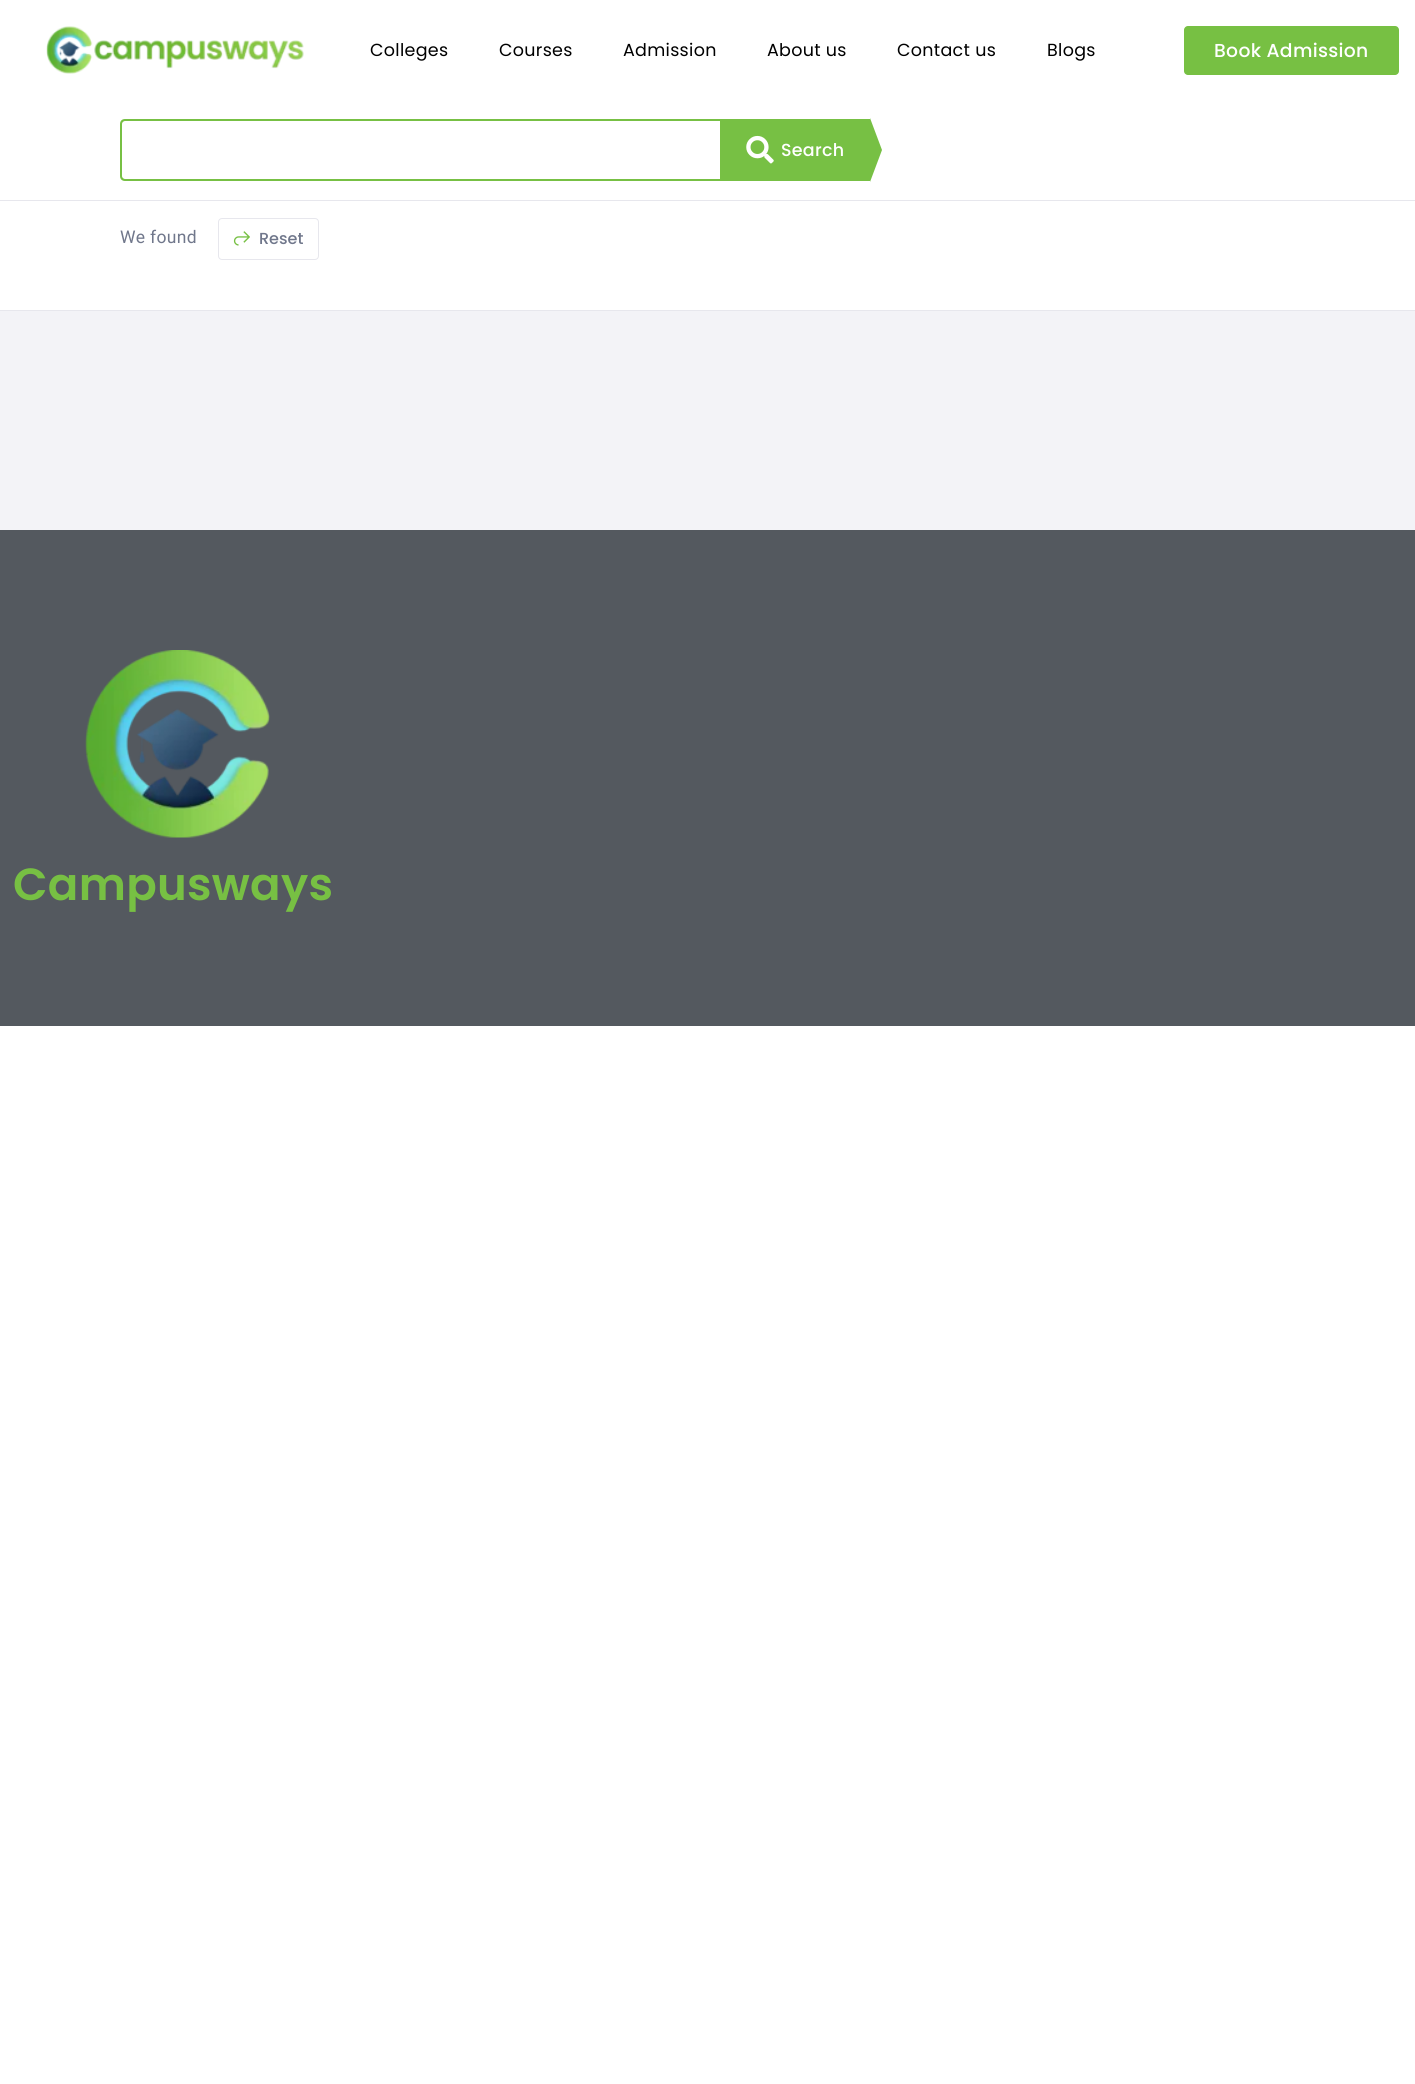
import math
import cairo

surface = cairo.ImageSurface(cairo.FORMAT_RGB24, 1415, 2084)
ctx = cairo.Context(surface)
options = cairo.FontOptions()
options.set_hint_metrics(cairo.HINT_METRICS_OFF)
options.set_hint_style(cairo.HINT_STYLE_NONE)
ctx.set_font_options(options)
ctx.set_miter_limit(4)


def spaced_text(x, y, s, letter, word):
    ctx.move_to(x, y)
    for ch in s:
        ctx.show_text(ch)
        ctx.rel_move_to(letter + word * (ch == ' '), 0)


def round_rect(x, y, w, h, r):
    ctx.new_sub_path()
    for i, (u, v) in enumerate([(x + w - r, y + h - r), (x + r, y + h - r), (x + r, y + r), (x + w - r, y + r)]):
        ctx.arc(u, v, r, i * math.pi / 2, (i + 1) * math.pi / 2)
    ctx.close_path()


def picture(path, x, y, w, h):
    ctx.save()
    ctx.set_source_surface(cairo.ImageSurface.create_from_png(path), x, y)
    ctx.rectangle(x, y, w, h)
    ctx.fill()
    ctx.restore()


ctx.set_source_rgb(1, 1, 1)
ctx.paint()
picture("img1.png", 46, 26, 258, 48)
ctx.select_font_face("Poppins")
ctx.set_font_size(17.5)
ctx.set_source_rgb(0, 0, 0)
spaced_text(370, 56, "Colleges", 0.3, 0)
spaced_text(499, 56, "Courses", 0.3, 0)
spaced_text(623, 56, "Admission", 0.3, 0)
spaced_text(767, 56, "About us", 0.3, 0)
spaced_text(897, 56, "Contact us", 0.3, 0)
spaced_text(1047, 56, "Blogs", 0.3, 0)
ctx.set_source_rgb(0.467, 0.753, 0.263)
round_rect(1184, 26, 215, 49, 4)
ctx.fill()
ctx.select_font_face("Poppins Medium")
ctx.set_font_size(18.75)
ctx.set_source_rgb(1, 1, 1)
spaced_text(1214, 57, "Book Admission", 0.3, 0)
ctx.set_source_rgb(0.906, 0.906, 0.929)
ctx.rectangle(0, 200, 1415, 1)
ctx.fill()
ctx.set_source_rgb(0.467, 0.753, 0.267)
ctx.set_fill_rule(cairo.FILL_RULE_EVEN_ODD)
ctx.new_path()
ctx.move_to(125, 119)
ctx.line_to(720, 119)
ctx.line_to(720, 181)
ctx.line_to(125, 181)
ctx.curve_to(122, 181, 120, 179, 120, 176)
ctx.line_to(120, 124)
ctx.curve_to(120, 121, 122, 119, 125, 119)
ctx.close_path()
ctx.move_to(125, 121)
ctx.line_to(720, 121)
ctx.line_to(720, 179)
ctx.line_to(125, 179)
ctx.curve_to(124, 179, 122, 178, 122, 176)
ctx.line_to(122, 124)
ctx.curve_to(122, 122, 124, 121, 125, 121)
ctx.close_path()
ctx.fill()
ctx.rectangle(720, 119, 150, 62)
ctx.fill()
picture("img2.png", 746, 135, 28, 29)
ctx.set_font_size(17.5)
ctx.set_source_rgb(1, 1, 1)
spaced_text(781, 156, "Search", 0.25, 0)
ctx.set_source_rgb(0.467, 0.753, 0.267)
ctx.set_fill_rule(cairo.FILL_RULE_WINDING)
ctx.new_path()
ctx.move_to(870, 182)
ctx.line_to(870, 118)
ctx.line_to(882, 150)
ctx.close_path()
ctx.fill()
ctx.set_source_rgb(0.953, 0.953, 0.965)
ctx.rectangle(0, 311, 1415, 219)
ctx.fill()
ctx.set_source_rgb(0.906, 0.906, 0.929)
ctx.rectangle(0, 310, 1415, 1)
ctx.fill()
ctx.select_font_face("Roboto")
ctx.set_source_rgb(0.439, 0.467, 0.545)
spaced_text(120, 243, "We found", 0.3, 0)
round_rect(218.5, 218.5, 100, 41, 3.5)
ctx.set_source_rgb(0.906, 0.906, 0.929)
ctx.set_line_width(1)
ctx.stroke()
picture("img3.png", 233, 231, 17, 15)
ctx.select_font_face("Poppins Medium")
ctx.set_font_size(16)
ctx.set_source_rgb(0.439, 0.467, 0.545)
ctx.move_to(259, 244)
ctx.show_text("Reset")
ctx.set_source_rgb(0.329, 0.349, 0.373)
ctx.rectangle(0, 530, 1415, 496)
ctx.fill()
picture("img4.png", 85, 650, 185, 188)
ctx.select_font_face("Poppins SemiBold")
ctx.set_font_size(45)
ctx.set_source_rgb(0.467, 0.753, 0.263)
spaced_text(13, 900, "Campusways", 0.3, 0)
surface.write_to_png("page.png")
